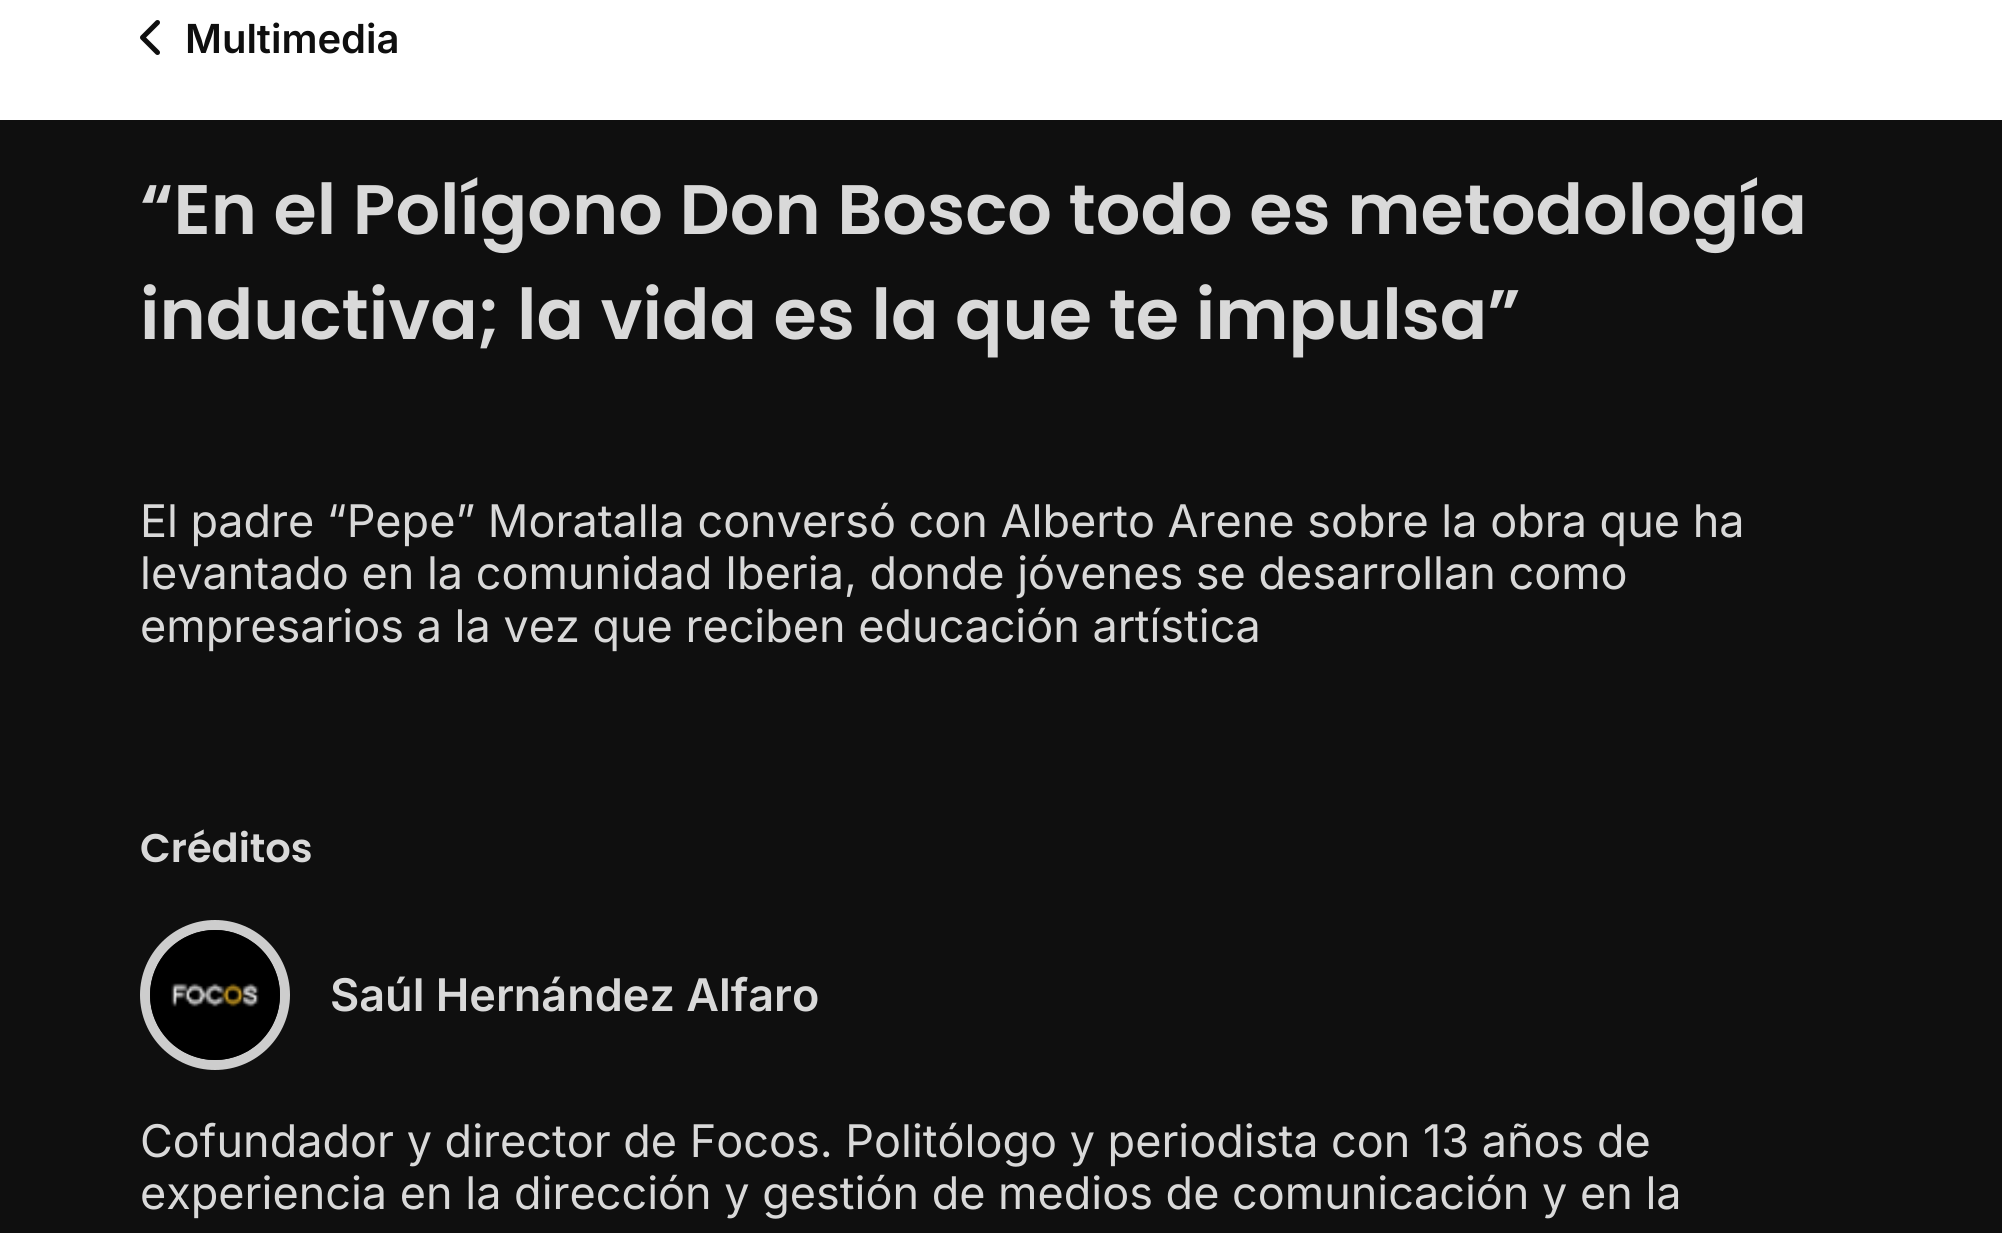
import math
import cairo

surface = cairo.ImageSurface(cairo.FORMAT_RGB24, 2002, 1233)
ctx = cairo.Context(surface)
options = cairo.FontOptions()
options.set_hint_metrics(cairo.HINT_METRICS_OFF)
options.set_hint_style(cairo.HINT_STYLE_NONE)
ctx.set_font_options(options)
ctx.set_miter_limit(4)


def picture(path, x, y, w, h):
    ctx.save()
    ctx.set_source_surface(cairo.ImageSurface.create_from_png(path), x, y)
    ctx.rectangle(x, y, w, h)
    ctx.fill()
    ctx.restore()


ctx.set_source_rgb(1, 1, 1)
ctx.paint()
picture("img1.png", 140, 20, 20, 35)
ctx.select_font_face("Inter SemiBold")
ctx.set_font_size(40)
ctx.set_source_rgb(0.059, 0.059, 0.059)
ctx.move_to(185, 53)
ctx.show_text("Multimedia")
ctx.rectangle(0, 120, 2002, 1113)
ctx.fill()
ctx.select_font_face("Poppins SemiBold")
ctx.set_font_size(70)
ctx.set_source_rgb(0.851, 0.851, 0.851)
ctx.move_to(140, 234)
ctx.show_text("“En el Polígono Don Bosco todo es metodología")
ctx.move_to(140, 339)
ctx.show_text("inductiva; la vida es la que te impulsa”")
ctx.select_font_face("Inter")
ctx.set_font_size(45)
ctx.move_to(140, 537)
ctx.show_text("El padre “Pepe” Moratalla conversó con Alberto Arene sobre la obra que ha")
ctx.move_to(140, 589)
ctx.show_text("levantado en la comunidad Iberia, donde jóvenes se desarrollan como")
ctx.move_to(140, 642)
ctx.show_text("empresarios a la vez que reciben educación artística")
ctx.select_font_face("Poppins SemiBold")
ctx.set_font_size(40)
ctx.move_to(140, 862)
ctx.show_text("Créditos")
ctx.new_path()
ctx.arc(215, 995, 70, 0, 2 * math.pi)
ctx.set_source_rgb(0.804, 0.804, 0.804)
ctx.set_line_width(10)
ctx.stroke()
picture("img2.png", 150, 930, 130, 130)
ctx.select_font_face("Inter SemiBold")
ctx.set_font_size(45)
ctx.set_source_rgb(0.851, 0.851, 0.851)
ctx.move_to(330, 1011)
ctx.show_text("Saúl Hernández Alfaro")
ctx.select_font_face("Inter")
ctx.move_to(140, 1157)
ctx.show_text("Cofundador y director de Focos. Politólogo y periodista con 13 años de")
ctx.move_to(140, 1209)
ctx.show_text("experiencia en la dirección y gestión de medios de comunicación y en la")
surface.write_to_png("page.png")
